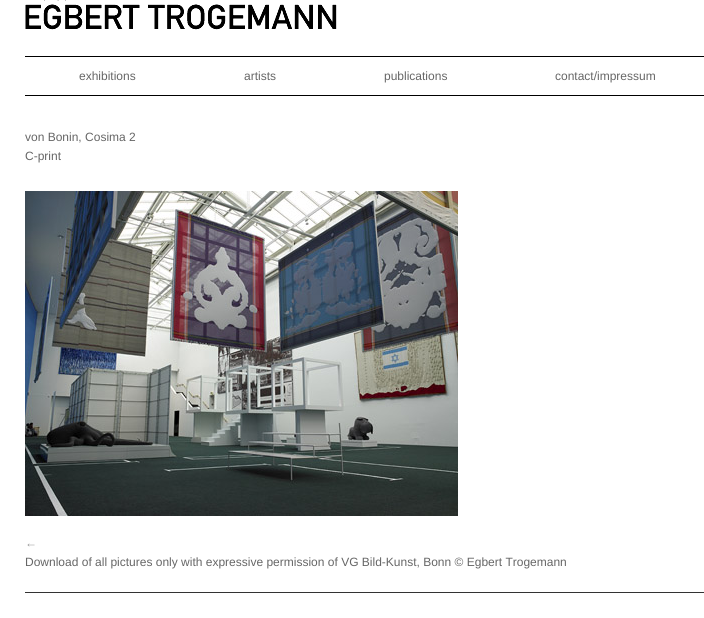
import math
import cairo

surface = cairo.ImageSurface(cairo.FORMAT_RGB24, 704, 618)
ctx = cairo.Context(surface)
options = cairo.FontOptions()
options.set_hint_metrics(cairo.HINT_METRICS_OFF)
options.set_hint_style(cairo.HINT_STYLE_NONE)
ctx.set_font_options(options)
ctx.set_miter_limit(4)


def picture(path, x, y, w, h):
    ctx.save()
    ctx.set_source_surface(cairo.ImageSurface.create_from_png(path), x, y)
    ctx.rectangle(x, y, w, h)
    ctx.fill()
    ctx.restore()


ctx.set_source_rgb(1, 1, 1)
ctx.paint()
picture("img1.png", 25, 0, 312, 30)
ctx.set_source_rgb(0, 0, 0)
ctx.rectangle(25, 56, 679, 1)
ctx.fill()
ctx.rectangle(25, 95, 679, 1)
ctx.fill()
ctx.select_font_face("Liberation Sans")
ctx.set_font_size(12)
ctx.set_source_rgb(0.4, 0.4, 0.4)
ctx.move_to(79, 80)
ctx.show_text("exhibitions")
ctx.move_to(244, 80)
ctx.show_text("artists")
ctx.move_to(384, 80)
ctx.show_text("publications")
ctx.move_to(555, 80)
ctx.show_text("contact/impressum")
ctx.set_source_rgb(0.2, 0.2, 0.2)
ctx.rectangle(25, 592, 679, 1)
ctx.fill()
ctx.set_source_rgb(0.4, 0.4, 0.4)
ctx.move_to(25, 141)
ctx.show_text("von Bonin, Cosima 2")
ctx.move_to(25, 160)
ctx.show_text("C-print")
picture("img2.png", 25, 191, 433, 325)
ctx.set_source_rgb(0.6, 0.6, 0.6)
ctx.move_to(25, 547)
ctx.show_text("←")
ctx.set_source_rgb(0.4, 0.4, 0.4)
ctx.move_to(25, 566)
ctx.show_text("Download of all pictures only with expressive permission of VG Bild-Kunst, Bonn © Egbert Trogemann")
surface.write_to_png("page.png")
